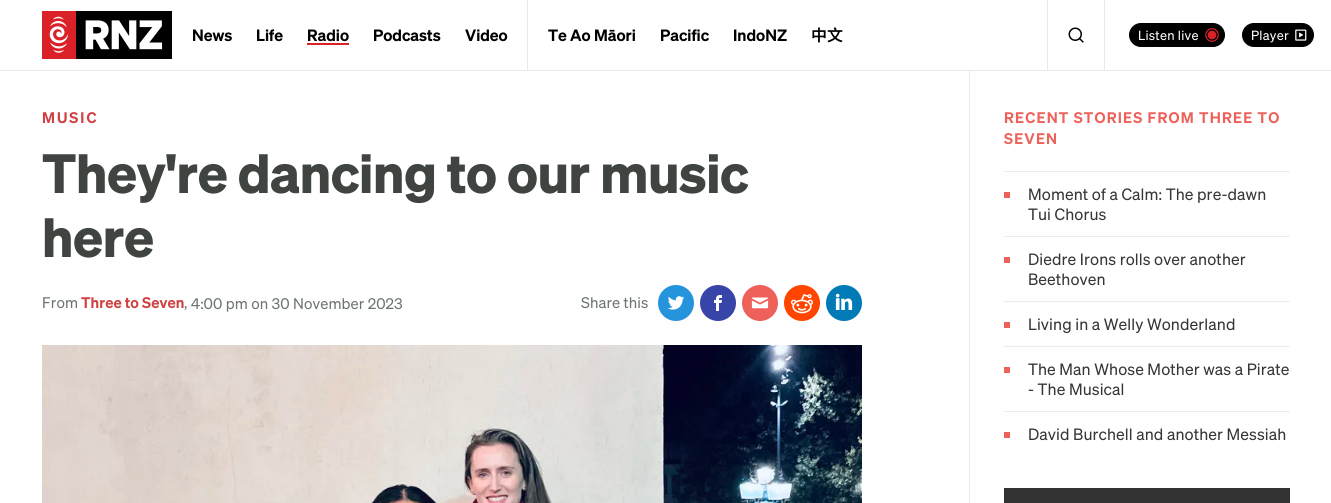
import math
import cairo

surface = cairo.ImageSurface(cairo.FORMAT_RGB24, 1331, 503)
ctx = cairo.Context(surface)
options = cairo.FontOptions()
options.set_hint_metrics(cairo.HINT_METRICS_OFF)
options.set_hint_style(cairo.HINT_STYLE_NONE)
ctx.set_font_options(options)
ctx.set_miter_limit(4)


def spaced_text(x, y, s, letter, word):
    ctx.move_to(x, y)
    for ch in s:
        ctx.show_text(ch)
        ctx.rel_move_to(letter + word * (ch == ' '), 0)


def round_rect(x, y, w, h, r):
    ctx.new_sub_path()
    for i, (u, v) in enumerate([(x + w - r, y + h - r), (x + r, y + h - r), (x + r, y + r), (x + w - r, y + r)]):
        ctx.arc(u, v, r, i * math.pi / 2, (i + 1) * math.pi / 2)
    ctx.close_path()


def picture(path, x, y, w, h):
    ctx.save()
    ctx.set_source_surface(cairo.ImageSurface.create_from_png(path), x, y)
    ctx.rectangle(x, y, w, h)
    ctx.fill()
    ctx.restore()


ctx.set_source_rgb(1, 1, 1)
ctx.paint()
ctx.set_source_rgb(0.91, 0.91, 0.91)
ctx.rectangle(0, 70, 1331, 1)
ctx.fill()
picture("img1.png", 42, 11, 130, 48)
ctx.select_font_face("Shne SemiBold")
ctx.set_font_size(16)
ctx.set_source_rgb(0, 0, 0)
ctx.move_to(192, 41)
ctx.show_text("News")
ctx.move_to(256, 41)
ctx.show_text("Life")
ctx.move_to(307, 41)
ctx.show_text("Radio")
ctx.set_source_rgb(0.855, 0.129, 0.157)
ctx.rectangle(307, 43, 42, 2)
ctx.fill()
ctx.set_source_rgb(0, 0, 0)
ctx.move_to(373, 41)
ctx.show_text("Podcasts")
ctx.move_to(465, 41)
ctx.show_text("Video")
ctx.set_source_rgb(0.91, 0.91, 0.91)
ctx.rectangle(527, 0, 1, 70)
ctx.fill()
ctx.set_source_rgb(0, 0, 0)
ctx.move_to(548, 41)
ctx.show_text("Te Ao Māori")
ctx.move_to(660, 41)
ctx.show_text("Pacific")
ctx.move_to(733, 41)
ctx.show_text("IndoNZ")
ctx.select_font_face("Noto Sans SC SemiBold")
ctx.move_to(811, 41)
ctx.show_text("中文")
ctx.set_source_rgb(0.91, 0.91, 0.91)
ctx.rectangle(1047, 0, 1, 70)
ctx.fill()
picture("img2.png", 1068, 27, 16, 16)
ctx.rectangle(1104, 0, 1, 70)
ctx.fill()
ctx.set_source_rgb(0, 0, 0)
round_rect(1129.5, 23.5, 95, 23, 11.5)
ctx.fill_preserve()
ctx.set_line_width(1)
ctx.stroke()
ctx.select_font_face("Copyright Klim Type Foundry")
ctx.set_font_size(13)
ctx.set_source_rgb(1, 1, 1)
spaced_text(1138, 40, "Listen live", 0.25, 0)
picture("img3.png", 1205, 28, 14, 14)
ctx.set_source_rgb(0, 0, 0)
round_rect(1242.5, 23.5, 71, 23, 11.5)
ctx.fill_preserve()
ctx.stroke()
ctx.set_source_rgb(1, 1, 1)
spaced_text(1251, 40, "Player", 0.25, 0)
picture("img4.png", 1295, 29, 12, 12)
ctx.select_font_face("Shne SemiBold")
ctx.set_font_size(15)
ctx.set_source_rgb(0.824, 0.255, 0.255)
spaced_text(42, 123, "MUSIC", 2, 0)
ctx.select_font_face("Copyright Klim Type Foundry", cairo.FONT_SLANT_NORMAL, cairo.FONT_WEIGHT_BOLD)
ctx.set_font_size(54)
ctx.set_source_rgb(0.251, 0.267, 0.255)
spaced_text(42, 193, "They're dancing to our music", -0.4, 0)
spaced_text(42, 257, "here", -0.4, 0)
ctx.select_font_face("Copyright Klim Type Foundry")
ctx.set_font_size(15)
ctx.set_source_rgb(0.427, 0.459, 0.439)
spaced_text(42, 308, "From", 0.1, 0)
ctx.select_font_face("Shne SemiBold")
ctx.set_source_rgb(0.824, 0.255, 0.255)
spaced_text(81, 308, "Three to Seven", 0.1, 0)
ctx.select_font_face("Copyright Klim Type Foundry")
ctx.set_source_rgb(0.427, 0.459, 0.439)
spaced_text(184, 308, ",", 0.1, 0)
spaced_text(191, 309, "4:00 pm on 30 November 2023", 0.1, 0)
spaced_text(581, 308, "Share this", 0.1, 0)
ctx.set_source_rgb(0.149, 0.576, 0.867)
ctx.new_path()
ctx.arc(676, 303, 18, 0, 2 * math.pi)
ctx.fill()
picture("img5.png", 668, 296, 17, 14)
ctx.set_source_rgb(0.216, 0.267, 0.659)
ctx.arc(718, 303, 18, 0, 2 * math.pi)
ctx.fill()
picture("img6.png", 714, 295, 8, 16)
ctx.set_source_rgb(0.929, 0.38, 0.353)
ctx.arc(760, 303, 18, 0, 2 * math.pi)
ctx.fill()
picture("img7.png", 751, 297, 18, 12)
ctx.set_source_rgb(1, 0.271, 0)
ctx.arc(802, 303, 18, 0, 2 * math.pi)
ctx.fill()
picture("img8.png", 791, 294, 22, 20)
ctx.set_source_rgb(0, 0.482, 0.714)
ctx.arc(844, 303, 18, 0, 2 * math.pi)
ctx.fill()
picture("img9.png", 835, 293, 18, 17)
picture("img10.png", 42, 345, 820, 158)
ctx.set_source_rgb(0.922, 0.918, 0.902)
ctx.rectangle(969, 71, 1, 432)
ctx.fill()
ctx.select_font_face("Shne SemiBold")
ctx.set_source_rgb(0.929, 0.38, 0.353)
spaced_text(1004, 123, "RECENT STORIES FROM THREE TO", 1.2, 0)
spaced_text(1004, 144, "SEVEN", 1.2, 0)
ctx.set_source_rgb(0.922, 0.918, 0.902)
ctx.rectangle(1004, 171, 286, 1)
ctx.fill()
ctx.set_source_rgb(0.929, 0.38, 0.353)
ctx.rectangle(1004, 192, 6, 6)
ctx.fill()
ctx.select_font_face("Copyright Klim Type Foundry")
ctx.set_font_size(16)
ctx.set_source_rgb(0.204, 0.216, 0.204)
spaced_text(1028, 200, "Moment of a Calm: The pre-dawn", 0.1, 0)
spaced_text(1028, 220, "Tui Chorus", 0.1, 0)
ctx.set_source_rgb(0.922, 0.918, 0.902)
ctx.rectangle(1004, 236, 286, 1)
ctx.fill()
ctx.set_source_rgb(0.929, 0.38, 0.353)
ctx.rectangle(1004, 257, 6, 6)
ctx.fill()
ctx.set_source_rgb(0.204, 0.216, 0.204)
spaced_text(1028, 265, "Diedre Irons rolls over another", 0.1, 0)
spaced_text(1028, 285, "Beethoven", 0.1, 0)
ctx.set_source_rgb(0.922, 0.918, 0.902)
ctx.rectangle(1004, 301, 286, 1)
ctx.fill()
ctx.set_source_rgb(0.929, 0.38, 0.353)
ctx.rectangle(1004, 322, 6, 6)
ctx.fill()
ctx.set_source_rgb(0.204, 0.216, 0.204)
spaced_text(1028, 330, "Living in a Welly Wonderland", 0.1, 0)
ctx.set_source_rgb(0.922, 0.918, 0.902)
ctx.rectangle(1004, 346, 286, 1)
ctx.fill()
ctx.set_source_rgb(0.929, 0.38, 0.353)
ctx.rectangle(1004, 367, 6, 6)
ctx.fill()
ctx.set_source_rgb(0.204, 0.216, 0.204)
spaced_text(1028, 375, "The Man Whose Mother was a Pirate", 0.1, 0)
spaced_text(1028, 395, "- The Musical", 0.1, 0)
ctx.set_source_rgb(0.922, 0.918, 0.902)
ctx.rectangle(1004, 411, 286, 1)
ctx.fill()
ctx.set_source_rgb(0.929, 0.38, 0.353)
ctx.rectangle(1004, 432, 6, 6)
ctx.fill()
ctx.set_source_rgb(0.204, 0.216, 0.204)
spaced_text(1028, 440, "David Burchell and another Messiah", 0.1, 0)
ctx.set_source_rgb(0.2, 0.2, 0.2)
ctx.rectangle(1004, 488, 286, 15)
ctx.fill()
surface.write_to_png("page.png")
